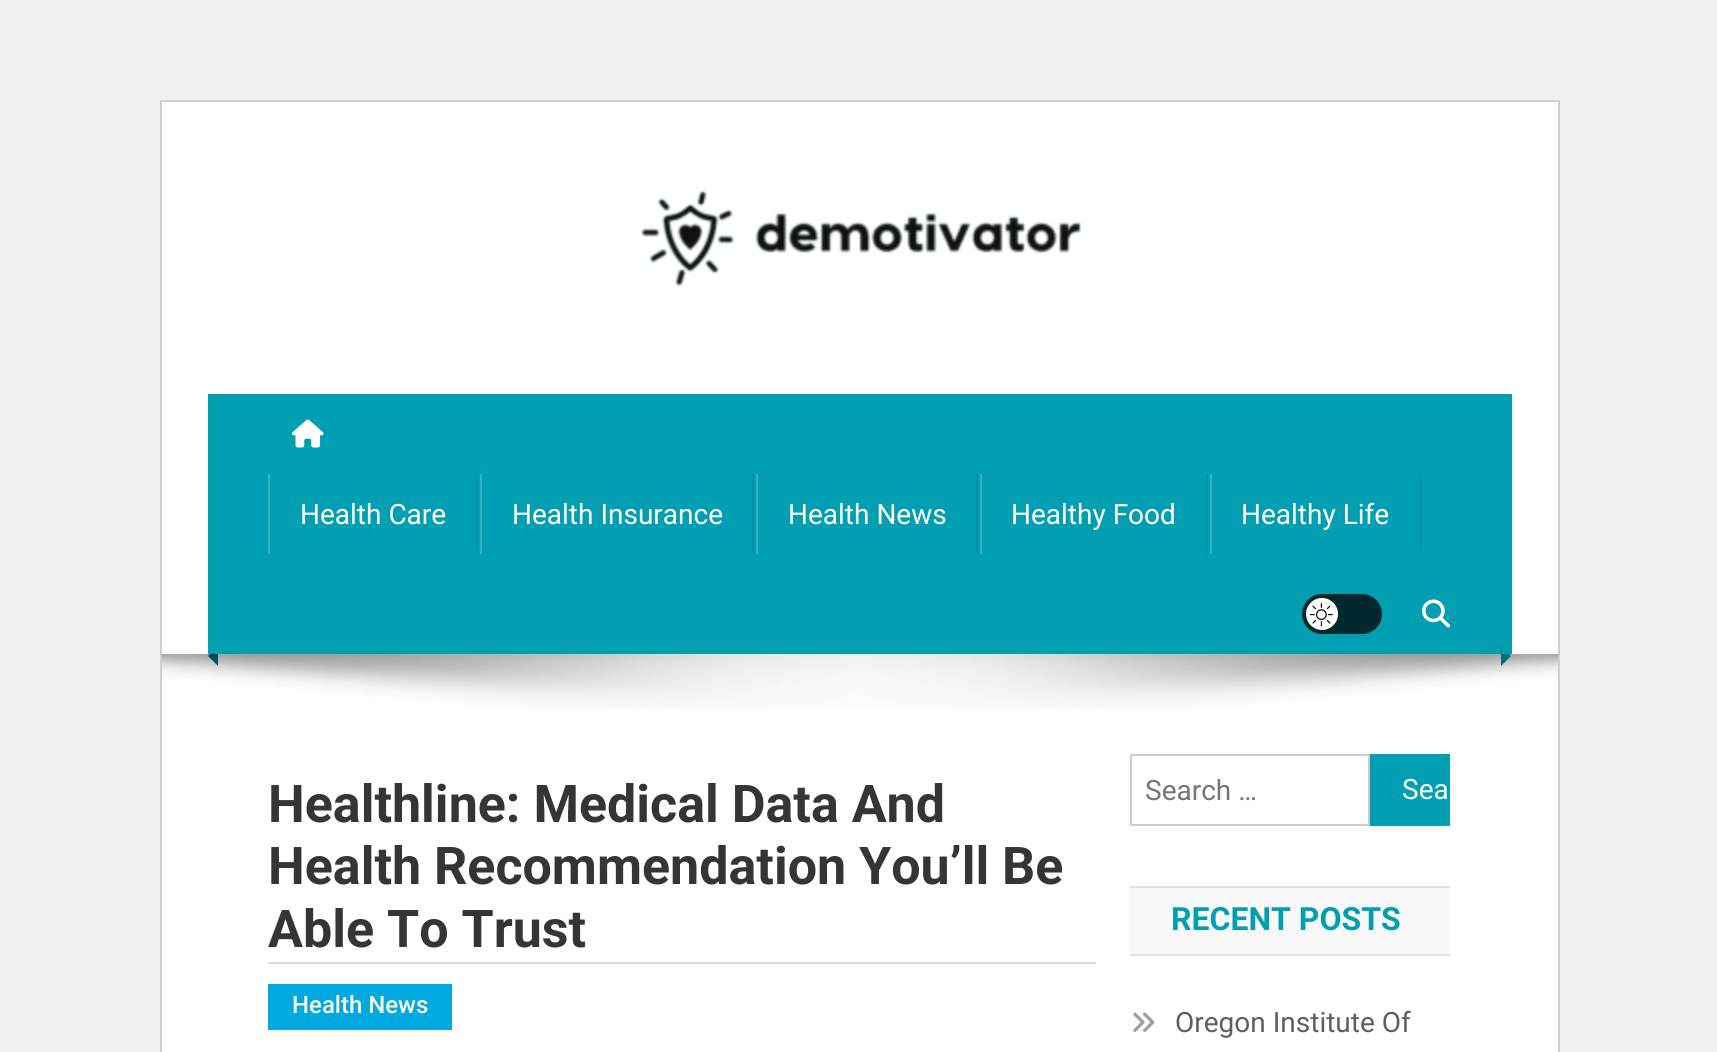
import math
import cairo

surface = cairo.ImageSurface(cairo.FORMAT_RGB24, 1717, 1052)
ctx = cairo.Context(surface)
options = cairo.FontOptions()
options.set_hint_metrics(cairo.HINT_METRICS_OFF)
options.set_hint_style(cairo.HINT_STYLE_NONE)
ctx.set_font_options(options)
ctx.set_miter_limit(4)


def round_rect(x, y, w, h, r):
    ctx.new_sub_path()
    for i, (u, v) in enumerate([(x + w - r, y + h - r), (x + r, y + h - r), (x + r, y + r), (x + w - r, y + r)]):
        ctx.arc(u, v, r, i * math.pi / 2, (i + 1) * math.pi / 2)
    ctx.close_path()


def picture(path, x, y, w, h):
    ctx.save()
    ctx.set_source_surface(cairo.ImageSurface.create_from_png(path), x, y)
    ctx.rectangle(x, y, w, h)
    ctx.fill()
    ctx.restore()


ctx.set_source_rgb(0.945, 0.945, 0.945)
ctx.paint()
ctx.set_source_rgb(1, 1, 1)
ctx.rectangle(161, 101, 1398, 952)
ctx.fill_preserve()
ctx.set_source_rgb(0.8, 0.816, 0.831)
ctx.stroke()
picture("img1.png", 641, 190, 440, 97)
ctx.set_source_rgb(0.008, 0.624, 0.698)
ctx.rectangle(218, 394, 1284, 260)
ctx.fill()
ctx.set_source_rgb(0, 0.427, 0.502)
ctx.new_path()
ctx.move_to(218, 646)
ctx.line_to(218, 666)
ctx.line_to(208, 656)
ctx.close_path()
ctx.fill()
ctx.set_source_rgb(0.008, 0.624, 0.698)
ctx.rectangle(208, 394, 10, 260)
ctx.fill()
picture("img2.png", 292, 419, 32, 29)
ctx.set_source_rgb(0.008, 0.573, 0.643)
ctx.rectangle(476, 474, 2, 80)
ctx.fill()
ctx.set_source_rgb(0.208, 0.698, 0.757)
ctx.rectangle(268, 474, 2, 80)
ctx.fill()
ctx.select_font_face("Roboto")
ctx.set_font_size(28)
ctx.set_source_rgb(1, 1, 1)
ctx.move_to(300, 524)
ctx.show_text("Health Care")
ctx.set_source_rgb(0.008, 0.573, 0.643)
ctx.rectangle(752, 474, 2, 80)
ctx.fill()
ctx.set_source_rgb(0.208, 0.698, 0.757)
ctx.rectangle(480, 474, 2, 80)
ctx.fill()
ctx.set_source_rgb(1, 1, 1)
ctx.move_to(512, 524)
ctx.show_text("Health Insurance")
ctx.set_source_rgb(0.008, 0.573, 0.643)
ctx.rectangle(976, 474, 2, 80)
ctx.fill()
ctx.set_source_rgb(0.208, 0.698, 0.757)
ctx.rectangle(756, 474, 2, 80)
ctx.fill()
ctx.set_source_rgb(1, 1, 1)
ctx.move_to(788, 524)
ctx.show_text("Health News")
ctx.set_source_rgb(0.008, 0.573, 0.643)
ctx.rectangle(1206, 474, 2, 80)
ctx.fill()
ctx.set_source_rgb(0.208, 0.698, 0.757)
ctx.rectangle(980, 474, 2, 80)
ctx.fill()
ctx.set_source_rgb(1, 1, 1)
ctx.move_to(1011, 524)
ctx.show_text("Healthy Food")
ctx.set_source_rgb(0.008, 0.573, 0.643)
ctx.rectangle(1420, 474, 2, 80)
ctx.fill()
ctx.set_source_rgb(0.208, 0.698, 0.757)
ctx.rectangle(1210, 474, 2, 80)
ctx.fill()
ctx.set_source_rgb(1, 1, 1)
ctx.move_to(1241, 524)
ctx.show_text("Healthy Life")
ctx.set_source_rgb(0.004, 0.157, 0.176)
round_rect(1302, 594, 80, 40, 20)
ctx.fill()
ctx.set_source_rgb(1, 1, 1)
ctx.arc(1322, 614, 16, 0, 2 * math.pi)
ctx.fill()
picture("img3.png", 1310, 603, 23, 23)
picture("img4.png", 1422, 599, 28, 29)
picture("img5.png", 162, 654, 1396, 55)
ctx.set_source_rgb(0, 0.427, 0.502)
ctx.new_path()
ctx.move_to(1501, 666)
ctx.line_to(1501, 646)
ctx.line_to(1511, 656)
ctx.close_path()
ctx.fill()
ctx.set_source_rgb(0.008, 0.624, 0.698)
ctx.rectangle(1502, 394, 10, 260)
ctx.fill()
ctx.set_source_rgb(0.855, 0.855, 0.855)
ctx.rectangle(268, 962, 828, 2)
ctx.fill()
ctx.select_font_face("Roboto", cairo.FONT_SLANT_NORMAL, cairo.FONT_WEIGHT_BOLD)
ctx.set_font_size(52)
ctx.set_source_rgb(0.208, 0.208, 0.208)
ctx.move_to(268, 822)
ctx.show_text("Healthline: Medical Data And")
ctx.move_to(268, 884)
ctx.show_text("Health Recommendation You’ll Be")
ctx.move_to(268, 947)
ctx.show_text("Able To Trust")
ctx.set_source_rgb(0, 0.663, 0.878)
ctx.rectangle(268, 984, 184, 46)
ctx.fill()
ctx.select_font_face("Roboto Medium")
ctx.set_font_size(24)
ctx.set_source_rgb(1, 1, 1)
ctx.move_to(292, 1013)
ctx.show_text("Health News")
ctx.rectangle(1131, 755, 238, 70)
ctx.set_source_rgb(0.8, 0.8, 0.8)
ctx.stroke()
ctx.select_font_face("Roboto")
ctx.set_font_size(28)
ctx.set_source_rgb(0.459, 0.459, 0.459)
ctx.move_to(1145, 800)
ctx.show_text("Search …")
ctx.set_source_rgb(0.008, 0.624, 0.698)
ctx.rectangle(1370, 754, 80, 72)
ctx.fill()
ctx.set_source_rgb(1, 1, 1)
ctx.move_to(1402, 799)
ctx.show_text("Sea")
ctx.set_source_rgb(0.969, 0.969, 0.969)
ctx.rectangle(1130, 888, 320, 66)
ctx.fill()
ctx.set_source_rgb(0.882, 0.882, 0.882)
ctx.rectangle(1130, 886, 320, 2)
ctx.fill()
ctx.rectangle(1130, 954, 320, 2)
ctx.fill()
ctx.select_font_face("Roboto", cairo.FONT_SLANT_NORMAL, cairo.FONT_WEIGHT_BOLD)
ctx.set_font_size(32)
ctx.set_source_rgb(0.008, 0.624, 0.698)
ctx.move_to(1171, 930)
ctx.show_text("RECENT POSTS")
picture("img6.png", 1133, 1012, 22, 20)
ctx.select_font_face("Roboto")
ctx.set_font_size(28)
ctx.set_source_rgb(0.373, 0.373, 0.373)
ctx.move_to(1175, 1032)
ctx.show_text("Oregon Institute Of")
surface.write_to_png("page.png")
